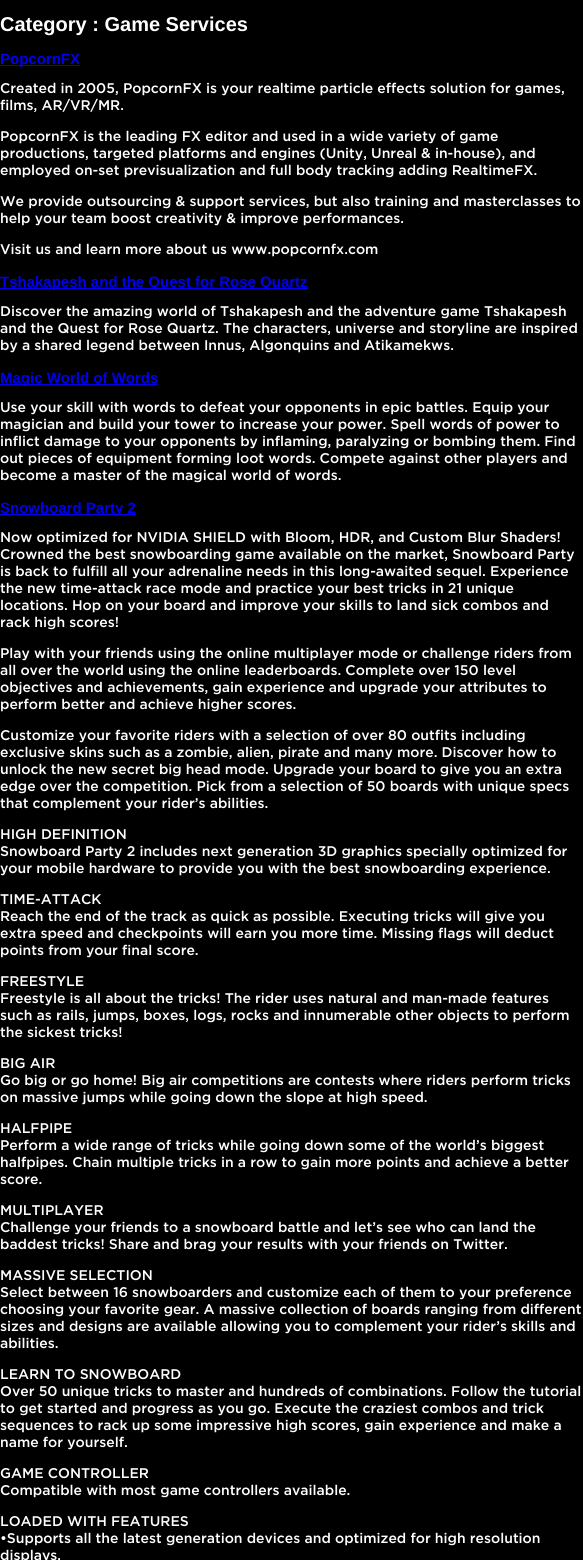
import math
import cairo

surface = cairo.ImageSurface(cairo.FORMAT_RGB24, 583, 1560)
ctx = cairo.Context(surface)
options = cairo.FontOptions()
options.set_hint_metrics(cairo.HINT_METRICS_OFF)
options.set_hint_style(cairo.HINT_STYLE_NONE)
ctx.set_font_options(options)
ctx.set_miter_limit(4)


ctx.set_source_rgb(0, 0, 0)
ctx.paint()
ctx.select_font_face("Liberation Sans", cairo.FONT_SLANT_NORMAL, cairo.FONT_WEIGHT_BOLD)
ctx.set_font_size(20)
ctx.set_source_rgb(1, 1, 1)
ctx.move_to(0, 31)
ctx.show_text("Category : Game Services")
ctx.set_source_rgb(0, 0, 0.933)
ctx.rectangle(0, 65, 80, 1)
ctx.fill()
ctx.set_font_size(15)
ctx.move_to(0, 64)
ctx.show_text("PopcornFX")
ctx.select_font_face("Gotham Medium")
ctx.set_font_size(14)
ctx.set_source_rgb(1, 1, 1)
ctx.move_to(0, 93)
ctx.show_text("Created in 2005, PopcornFX is your realtime particle effects solution for games,")
ctx.move_to(0, 110)
ctx.show_text("films, AR/VR/MR.")
ctx.move_to(0, 141)
ctx.show_text("PopcornFX is the leading FX editor and used in a wide variety of game")
ctx.move_to(0, 158)
ctx.show_text("productions, targeted platforms and engines (Unity, Unreal & in-house), and")
ctx.move_to(0, 175)
ctx.show_text("employed on-set previsualization and full body tracking adding RealtimeFX.")
ctx.move_to(0, 206)
ctx.show_text("We provide outsourcing & support services, but also training and masterclasses to")
ctx.move_to(0, 223)
ctx.show_text("help your team boost creativity & improve performances.")
ctx.move_to(0, 254)
ctx.show_text("Visit us and learn more about us www.popcornfx.com")
ctx.set_source_rgb(0, 0, 0.933)
ctx.rectangle(0, 288, 308, 1)
ctx.fill()
ctx.select_font_face("Liberation Sans", cairo.FONT_SLANT_NORMAL, cairo.FONT_WEIGHT_BOLD)
ctx.set_font_size(15)
ctx.move_to(0, 287)
ctx.show_text("Tshakapesh and the Quest for Rose Quartz")
ctx.select_font_face("Gotham Medium")
ctx.set_font_size(14)
ctx.set_source_rgb(1, 1, 1)
ctx.move_to(0, 316)
ctx.show_text("Discover the amazing world of Tshakapesh and the adventure game Tshakapesh")
ctx.move_to(0, 333)
ctx.show_text("and the Quest for Rose Quartz. The characters, universe and storyline are inspired")
ctx.move_to(0, 350)
ctx.show_text("by a shared legend between Innus, Algonquins and Atikamekws.")
ctx.set_source_rgb(0, 0, 0.933)
ctx.rectangle(0, 384, 158, 1)
ctx.fill()
ctx.select_font_face("Liberation Sans", cairo.FONT_SLANT_NORMAL, cairo.FONT_WEIGHT_BOLD)
ctx.set_font_size(15)
ctx.move_to(0, 383)
ctx.show_text("Magic World of Words")
ctx.select_font_face("Gotham Medium")
ctx.set_font_size(14)
ctx.set_source_rgb(1, 1, 1)
ctx.move_to(0, 412)
ctx.show_text("Use your skill with words to defeat your opponents in epic battles. Equip your")
ctx.move_to(0, 429)
ctx.show_text("magician and build your tower to increase your power. Spell words of power to")
ctx.move_to(0, 446)
ctx.show_text("inflict damage to your opponents by inflaming, paralyzing or bombing them. Find")
ctx.move_to(0, 463)
ctx.show_text("out pieces of equipment forming loot words. Compete against other players and")
ctx.move_to(0, 480)
ctx.show_text("become a master of the magical world of words.")
ctx.set_source_rgb(0, 0, 0.933)
ctx.rectangle(0, 514, 136, 1)
ctx.fill()
ctx.select_font_face("Liberation Sans", cairo.FONT_SLANT_NORMAL, cairo.FONT_WEIGHT_BOLD)
ctx.set_font_size(15)
ctx.move_to(0, 513)
ctx.show_text("Snowboard Party 2")
ctx.select_font_face("Gotham Medium")
ctx.set_font_size(14)
ctx.set_source_rgb(1, 1, 1)
ctx.move_to(0, 542)
ctx.show_text("Now optimized for NVIDIA SHIELD with Bloom, HDR, and Custom Blur Shaders!")
ctx.move_to(0, 559)
ctx.show_text("Crowned the best snowboarding game available on the market, Snowboard Party")
ctx.move_to(0, 576)
ctx.show_text("is back to fulfill all your adrenaline needs in this long-awaited sequel. Experience")
ctx.move_to(0, 593)
ctx.show_text("the new time-attack race mode and practice your best tricks in 21 unique")
ctx.move_to(0, 610)
ctx.show_text("locations. Hop on your board and improve your skills to land sick combos and")
ctx.move_to(0, 627)
ctx.show_text("rack high scores!")
ctx.move_to(0, 658)
ctx.show_text("Play with your friends using the online multiplayer mode or challenge riders from")
ctx.move_to(0, 675)
ctx.show_text("all over the world using the online leaderboards. Complete over 150 level")
ctx.move_to(0, 692)
ctx.show_text("objectives and achievements, gain experience and upgrade your attributes to")
ctx.move_to(0, 709)
ctx.show_text("perform better and achieve higher scores.")
ctx.move_to(0, 740)
ctx.show_text("Customize your favorite riders with a selection of over 80 outfits including")
ctx.move_to(0, 757)
ctx.show_text("exclusive skins such as a zombie, alien, pirate and many more. Discover how to")
ctx.move_to(0, 774)
ctx.show_text("unlock the new secret big head mode. Upgrade your board to give you an extra")
ctx.move_to(0, 791)
ctx.show_text("edge over the competition. Pick from a selection of 50 boards with unique specs")
ctx.move_to(0, 808)
ctx.show_text("that complement your rider’s abilities.")
ctx.move_to(0, 839)
ctx.show_text("HIGH DEFINITION")
ctx.move_to(0, 856)
ctx.show_text("Snowboard Party 2 includes next generation 3D graphics specially optimized for")
ctx.move_to(0, 873)
ctx.show_text("your mobile hardware to provide you with the best snowboarding experience.")
ctx.move_to(0, 904)
ctx.show_text("TIME-ATTACK")
ctx.move_to(0, 921)
ctx.show_text("Reach the end of the track as quick as possible. Executing tricks will give you")
ctx.move_to(0, 938)
ctx.show_text("extra speed and checkpoints will earn you more time. Missing flags will deduct")
ctx.move_to(0, 955)
ctx.show_text("points from your final score.")
ctx.move_to(0, 986)
ctx.show_text("FREESTYLE")
ctx.move_to(0, 1003)
ctx.show_text("Freestyle is all about the tricks! The rider uses natural and man-made features")
ctx.move_to(0, 1020)
ctx.show_text("such as rails, jumps, boxes, logs, rocks and innumerable other objects to perform")
ctx.move_to(0, 1037)
ctx.show_text("the sickest tricks!")
ctx.move_to(0, 1068)
ctx.show_text("BIG AIR")
ctx.move_to(0, 1085)
ctx.show_text("Go big or go home! Big air competitions are contests where riders perform tricks")
ctx.move_to(0, 1102)
ctx.show_text("on massive jumps while going down the slope at high speed.")
ctx.move_to(0, 1133)
ctx.show_text("HALFPIPE")
ctx.move_to(0, 1150)
ctx.show_text("Perform a wide range of tricks while going down some of the world’s biggest")
ctx.move_to(0, 1167)
ctx.show_text("halfpipes. Chain multiple tricks in a row to gain more points and achieve a better")
ctx.move_to(0, 1184)
ctx.show_text("score.")
ctx.move_to(0, 1215)
ctx.show_text("MULTIPLAYER")
ctx.move_to(0, 1232)
ctx.show_text("Challenge your friends to a snowboard battle and let’s see who can land the")
ctx.move_to(0, 1249)
ctx.show_text("baddest tricks! Share and brag your results with your friends on Twitter.")
ctx.move_to(0, 1280)
ctx.show_text("MASSIVE SELECTION")
ctx.move_to(0, 1297)
ctx.show_text("Select between 16 snowboarders and customize each of them to your preference")
ctx.move_to(0, 1314)
ctx.show_text("choosing your favorite gear. A massive collection of boards ranging from different")
ctx.move_to(0, 1331)
ctx.show_text("sizes and designs are available allowing you to complement your rider’s skills and")
ctx.move_to(0, 1348)
ctx.show_text("abilities.")
ctx.move_to(0, 1379)
ctx.show_text("LEARN TO SNOWBOARD")
ctx.move_to(0, 1396)
ctx.show_text("Over 50 unique tricks to master and hundreds of combinations. Follow the tutorial")
ctx.move_to(0, 1413)
ctx.show_text("to get started and progress as you go. Execute the craziest combos and trick")
ctx.move_to(0, 1430)
ctx.show_text("sequences to rack up some impressive high scores, gain experience and make a")
ctx.move_to(0, 1447)
ctx.show_text("name for yourself.")
ctx.move_to(0, 1478)
ctx.show_text("GAME CONTROLLER")
ctx.move_to(0, 1495)
ctx.show_text("Compatible with most game controllers available.")
ctx.move_to(0, 1526)
ctx.show_text("LOADED WITH FEATURES")
ctx.move_to(0, 1543)
ctx.show_text("•Supports all the latest generation devices and optimized for high resolution")
ctx.move_to(0, 1560)
ctx.show_text("displays.")
surface.write_to_png("page.png")
